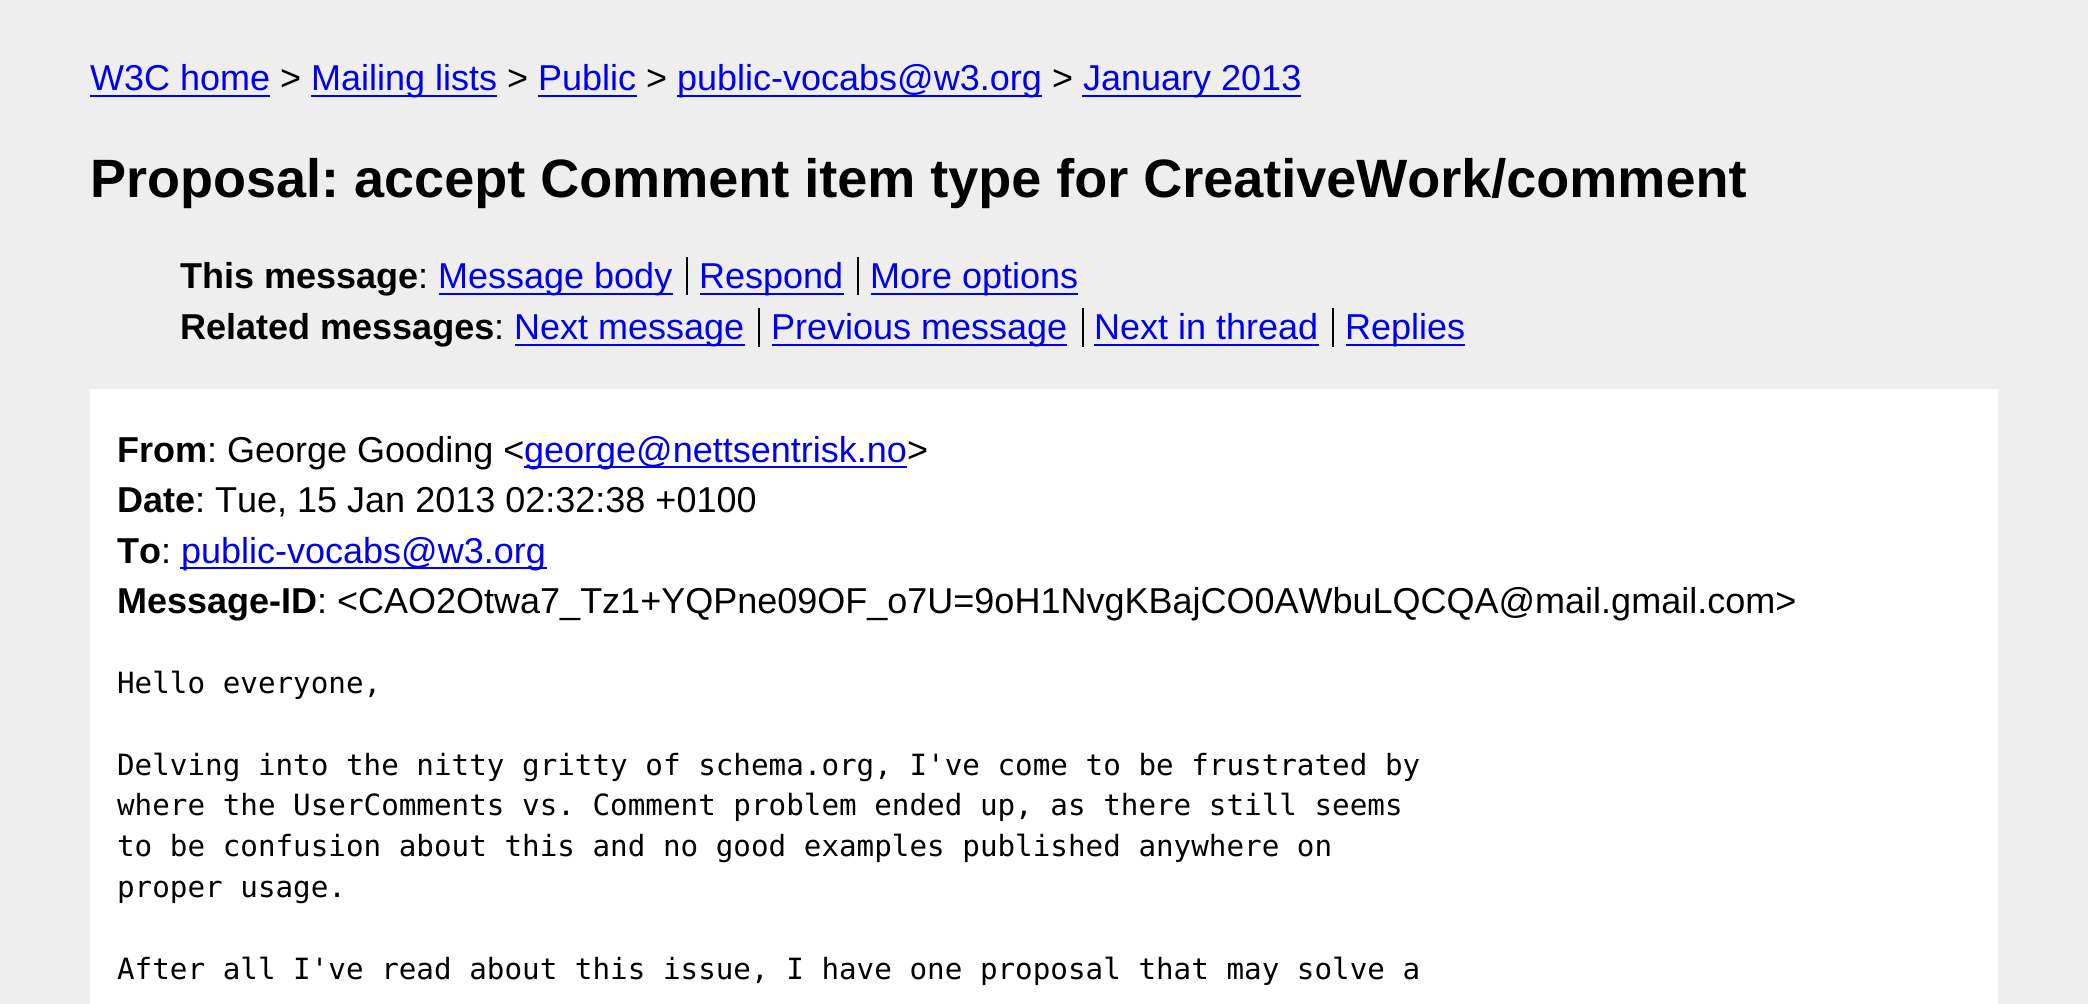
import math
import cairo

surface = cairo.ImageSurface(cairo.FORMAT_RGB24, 2088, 1004)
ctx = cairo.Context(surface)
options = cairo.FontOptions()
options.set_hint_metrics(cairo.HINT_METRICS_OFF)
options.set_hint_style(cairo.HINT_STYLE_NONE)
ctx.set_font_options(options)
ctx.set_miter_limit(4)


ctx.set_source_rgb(0.933, 0.933, 0.933)
ctx.paint()
ctx.select_font_face("Liberation Sans")
ctx.set_font_size(36)
ctx.set_source_rgb(0, 0, 0.933)
ctx.move_to(90, 90)
ctx.show_text("W3C home")
ctx.rectangle(90, 95, 180, 2)
ctx.fill()
ctx.set_source_rgb(0, 0, 0)
ctx.move_to(280, 90)
ctx.show_text(">")
ctx.set_source_rgb(0, 0, 0.933)
ctx.rectangle(311, 95, 186, 2)
ctx.fill()
ctx.move_to(311, 90)
ctx.show_text("Mailing lists")
ctx.set_source_rgb(0, 0, 0)
ctx.move_to(507, 90)
ctx.show_text(">")
ctx.set_source_rgb(0, 0, 0.933)
ctx.move_to(538, 90)
ctx.show_text("Public")
ctx.rectangle(538, 95, 99, 2)
ctx.fill()
ctx.set_source_rgb(0, 0, 0)
ctx.move_to(646, 90)
ctx.show_text(">")
ctx.set_source_rgb(0, 0, 0.933)
ctx.rectangle(677, 95, 365, 2)
ctx.fill()
ctx.move_to(677, 90)
ctx.show_text("public-vocabs@w3.org")
ctx.set_source_rgb(0, 0, 0)
ctx.move_to(1052, 90)
ctx.show_text(">")
ctx.set_source_rgb(0, 0, 0.933)
ctx.rectangle(1082, 95, 219, 2)
ctx.fill()
ctx.move_to(1083, 90)
ctx.show_text("January 2013")
ctx.select_font_face("Liberation Sans", cairo.FONT_SLANT_NORMAL, cairo.FONT_WEIGHT_BOLD)
ctx.set_font_size(54)
ctx.set_source_rgb(0, 0, 0)
ctx.move_to(90, 197)
ctx.show_text("Proposal: accept Comment item type for CreativeWork/comment")
ctx.set_font_size(36)
ctx.move_to(180, 288)
ctx.show_text("This message")
ctx.select_font_face("Liberation Sans")
ctx.move_to(418, 288)
ctx.show_text(":")
ctx.set_source_rgb(0, 0, 0.933)
ctx.rectangle(439, 293, 234, 2)
ctx.fill()
ctx.move_to(438, 288)
ctx.show_text("Message body")
ctx.set_source_rgb(0, 0, 0)
ctx.rectangle(686, 257, 2, 38)
ctx.fill()
ctx.set_source_rgb(0, 0, 0.933)
ctx.rectangle(700, 293, 144, 2)
ctx.fill()
ctx.move_to(699, 288)
ctx.show_text("Respond")
ctx.rectangle(871, 293, 207, 2)
ctx.fill()
ctx.move_to(870, 288)
ctx.show_text("More options")
ctx.set_source_rgb(0, 0, 0)
ctx.rectangle(857, 257, 2, 38)
ctx.fill()
ctx.select_font_face("Liberation Sans", cairo.FONT_SLANT_NORMAL, cairo.FONT_WEIGHT_BOLD)
ctx.move_to(180, 339)
ctx.show_text("Related messages")
ctx.select_font_face("Liberation Sans")
ctx.move_to(494, 339)
ctx.show_text(":")
ctx.set_source_rgb(0, 0, 0.933)
ctx.rectangle(515, 344, 230, 2)
ctx.fill()
ctx.move_to(514, 339)
ctx.show_text("Next message")
ctx.rectangle(772, 344, 295, 2)
ctx.fill()
ctx.move_to(771, 339)
ctx.show_text("Previous message")
ctx.set_source_rgb(0, 0, 0)
ctx.rectangle(758, 308, 2, 39)
ctx.fill()
ctx.set_source_rgb(0, 0, 0.933)
ctx.move_to(1094, 339)
ctx.show_text("Next in thread")
ctx.set_source_rgb(0, 0, 0)
ctx.rectangle(1082, 308, 2, 39)
ctx.fill()
ctx.set_source_rgb(0, 0, 0.933)
ctx.rectangle(1094, 344, 225, 2)
ctx.fill()
ctx.rectangle(1346, 344, 119, 2)
ctx.fill()
ctx.move_to(1345, 339)
ctx.show_text("Replies")
ctx.set_source_rgb(0, 0, 0)
ctx.rectangle(1332, 308, 2, 39)
ctx.fill()
ctx.set_source_rgb(1, 1, 1)
ctx.rectangle(90, 389, 1908, 615)
ctx.fill()
ctx.select_font_face("Liberation Sans", cairo.FONT_SLANT_NORMAL, cairo.FONT_WEIGHT_BOLD)
ctx.set_source_rgb(0, 0, 0)
ctx.move_to(117, 462)
ctx.show_text("From")
ctx.select_font_face("Liberation Sans")
ctx.move_to(207, 462)
ctx.show_text(": George Gooding <")
ctx.set_source_rgb(0, 0, 0.933)
ctx.rectangle(524, 466, 383, 2)
ctx.fill()
ctx.move_to(524, 462)
ctx.show_text("george@nettsentrisk.no")
ctx.set_source_rgb(0, 0, 0)
ctx.move_to(907, 462)
ctx.show_text(">")
ctx.select_font_face("Liberation Sans", cairo.FONT_SLANT_NORMAL, cairo.FONT_WEIGHT_BOLD)
ctx.move_to(117, 512)
ctx.show_text("Date")
ctx.select_font_face("Liberation Sans")
ctx.move_to(195, 512)
ctx.show_text(": Tue, 15 Jan 2013 02:32:38 +0100")
ctx.select_font_face("Liberation Sans", cairo.FONT_SLANT_NORMAL, cairo.FONT_WEIGHT_BOLD)
ctx.move_to(117, 563)
ctx.show_text("To")
ctx.select_font_face("Liberation Sans")
ctx.move_to(161, 563)
ctx.show_text(":")
ctx.set_source_rgb(0, 0, 0.933)
ctx.rectangle(180, 567, 367, 2)
ctx.fill()
ctx.move_to(181, 563)
ctx.show_text("public-vocabs@w3.org")
ctx.select_font_face("Liberation Sans", cairo.FONT_SLANT_NORMAL, cairo.FONT_WEIGHT_BOLD)
ctx.set_source_rgb(0, 0, 0)
ctx.move_to(117, 613)
ctx.show_text("Message-ID")
ctx.select_font_face("Liberation Sans")
ctx.move_to(317, 613)
ctx.show_text(": <CAO2Otwa7_Tz1+YQPne09OF_o7U=9oH1NvgKBajCO0AWbuLQCQA@mail.gmail.com>")
ctx.select_font_face("DejaVu Sans Mono")
ctx.set_font_size(29.25)
ctx.move_to(117, 693)
ctx.show_text("Hello everyone,")
ctx.move_to(117, 775)
ctx.show_text("Delving into the nitty gritty of schema.org, I've come to be frustrated by")
ctx.move_to(117, 815)
ctx.show_text("where the UserComments vs. Comment problem ended up, as there still seems")
ctx.move_to(117, 856)
ctx.show_text("to be confusion about this and no good examples published anywhere on")
ctx.move_to(117, 897)
ctx.show_text("proper usage.")
ctx.move_to(117, 979)
ctx.show_text("After all I've read about this issue, I have one proposal that may solve a")
surface.write_to_png("page.png")
